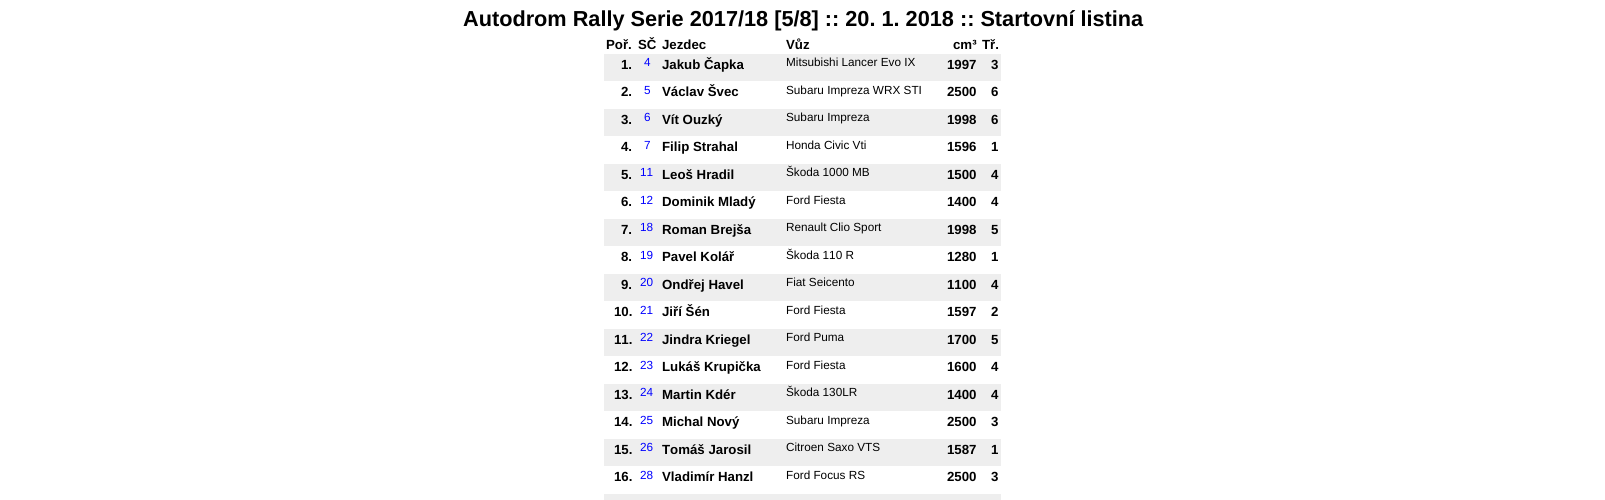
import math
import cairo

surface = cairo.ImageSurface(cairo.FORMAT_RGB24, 1605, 500)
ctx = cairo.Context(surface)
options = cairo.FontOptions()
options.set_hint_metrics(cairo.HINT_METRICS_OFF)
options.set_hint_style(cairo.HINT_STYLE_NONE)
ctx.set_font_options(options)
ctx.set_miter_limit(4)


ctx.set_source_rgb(1, 1, 1)
ctx.paint()
ctx.select_font_face("Liberation Sans", cairo.FONT_SLANT_NORMAL, cairo.FONT_WEIGHT_BOLD)
ctx.set_font_size(21.7)
ctx.set_source_rgb(0, 0, 0)
ctx.move_to(463, 26)
ctx.show_text("Autodrom Rally Serie 2017/18 [5/8] :: 20. 1. 2018 :: Startovní listina")
ctx.set_font_size(13.25)
ctx.move_to(606, 49)
ctx.show_text("Poř.")
ctx.move_to(638, 49)
ctx.show_text("SČ")
ctx.move_to(662, 49)
ctx.show_text("Jezdec")
ctx.move_to(786, 49)
ctx.show_text("Vůz")
ctx.move_to(953, 49)
ctx.show_text("cm³")
ctx.move_to(982, 49)
ctx.show_text("Tř.")
ctx.set_source_rgb(0.933, 0.933, 0.933)
ctx.rectangle(604, 54, 397, 27)
ctx.fill()
ctx.set_source_rgb(0, 0, 0)
ctx.move_to(621, 69)
ctx.show_text("1.")
ctx.select_font_face("Liberation Sans")
ctx.set_font_size(11.75)
ctx.set_source_rgb(0, 0, 1)
ctx.move_to(644, 66)
ctx.show_text("4")
ctx.select_font_face("Liberation Sans", cairo.FONT_SLANT_NORMAL, cairo.FONT_WEIGHT_BOLD)
ctx.set_font_size(13.25)
ctx.set_source_rgb(0, 0, 0)
ctx.move_to(662, 69)
ctx.show_text("Jakub Čapka")
ctx.select_font_face("Liberation Sans")
ctx.set_font_size(11.75)
ctx.move_to(786, 66)
ctx.show_text("Mitsubishi Lancer Evo IX")
ctx.select_font_face("Liberation Sans", cairo.FONT_SLANT_NORMAL, cairo.FONT_WEIGHT_BOLD)
ctx.set_font_size(13.25)
ctx.move_to(947, 69)
ctx.show_text("1997")
ctx.move_to(991, 69)
ctx.show_text("3")
ctx.move_to(621, 96)
ctx.show_text("2.")
ctx.select_font_face("Liberation Sans")
ctx.set_font_size(11.75)
ctx.set_source_rgb(0, 0, 1)
ctx.move_to(644, 94)
ctx.show_text("5")
ctx.select_font_face("Liberation Sans", cairo.FONT_SLANT_NORMAL, cairo.FONT_WEIGHT_BOLD)
ctx.set_font_size(13.25)
ctx.set_source_rgb(0, 0, 0)
ctx.move_to(662, 96)
ctx.show_text("Václav Švec")
ctx.select_font_face("Liberation Sans")
ctx.set_font_size(11.75)
ctx.move_to(786, 94)
ctx.show_text("Subaru Impreza WRX STI")
ctx.select_font_face("Liberation Sans", cairo.FONT_SLANT_NORMAL, cairo.FONT_WEIGHT_BOLD)
ctx.set_font_size(13.25)
ctx.move_to(947, 96)
ctx.show_text("2500")
ctx.move_to(991, 96)
ctx.show_text("6")
ctx.set_source_rgb(0.933, 0.933, 0.933)
ctx.rectangle(604, 109, 397, 27)
ctx.fill()
ctx.set_source_rgb(0, 0, 0)
ctx.move_to(621, 124)
ctx.show_text("3.")
ctx.select_font_face("Liberation Sans")
ctx.set_font_size(11.75)
ctx.set_source_rgb(0, 0, 1)
ctx.move_to(644, 121)
ctx.show_text("6")
ctx.select_font_face("Liberation Sans", cairo.FONT_SLANT_NORMAL, cairo.FONT_WEIGHT_BOLD)
ctx.set_font_size(13.25)
ctx.set_source_rgb(0, 0, 0)
ctx.move_to(662, 124)
ctx.show_text("Vít Ouzký")
ctx.select_font_face("Liberation Sans")
ctx.set_font_size(11.75)
ctx.move_to(786, 121)
ctx.show_text("Subaru Impreza")
ctx.select_font_face("Liberation Sans", cairo.FONT_SLANT_NORMAL, cairo.FONT_WEIGHT_BOLD)
ctx.set_font_size(13.25)
ctx.move_to(947, 124)
ctx.show_text("1998")
ctx.move_to(991, 124)
ctx.show_text("6")
ctx.move_to(621, 151)
ctx.show_text("4.")
ctx.select_font_face("Liberation Sans")
ctx.set_font_size(11.75)
ctx.set_source_rgb(0, 0, 1)
ctx.move_to(644, 149)
ctx.show_text("7")
ctx.select_font_face("Liberation Sans", cairo.FONT_SLANT_NORMAL, cairo.FONT_WEIGHT_BOLD)
ctx.set_font_size(13.25)
ctx.set_source_rgb(0, 0, 0)
ctx.move_to(662, 151)
ctx.show_text("Filip Strahal")
ctx.select_font_face("Liberation Sans")
ctx.set_font_size(11.75)
ctx.move_to(786, 149)
ctx.show_text("Honda Civic Vti")
ctx.select_font_face("Liberation Sans", cairo.FONT_SLANT_NORMAL, cairo.FONT_WEIGHT_BOLD)
ctx.set_font_size(13.25)
ctx.move_to(947, 151)
ctx.show_text("1596")
ctx.move_to(991, 151)
ctx.show_text("1")
ctx.set_source_rgb(0.933, 0.933, 0.933)
ctx.rectangle(604, 164, 397, 27)
ctx.fill()
ctx.set_source_rgb(0, 0, 0)
ctx.move_to(621, 179)
ctx.show_text("5.")
ctx.select_font_face("Liberation Sans")
ctx.set_font_size(11.75)
ctx.set_source_rgb(0, 0, 1)
ctx.move_to(640, 176)
ctx.show_text("11")
ctx.select_font_face("Liberation Sans", cairo.FONT_SLANT_NORMAL, cairo.FONT_WEIGHT_BOLD)
ctx.set_font_size(13.25)
ctx.set_source_rgb(0, 0, 0)
ctx.move_to(662, 179)
ctx.show_text("Leoš Hradil")
ctx.select_font_face("Liberation Sans")
ctx.set_font_size(11.75)
ctx.move_to(786, 176)
ctx.show_text("Škoda 1000 MB")
ctx.select_font_face("Liberation Sans", cairo.FONT_SLANT_NORMAL, cairo.FONT_WEIGHT_BOLD)
ctx.set_font_size(13.25)
ctx.move_to(947, 179)
ctx.show_text("1500")
ctx.move_to(991, 179)
ctx.show_text("4")
ctx.move_to(621, 206)
ctx.show_text("6.")
ctx.select_font_face("Liberation Sans")
ctx.set_font_size(11.75)
ctx.set_source_rgb(0, 0, 1)
ctx.move_to(640, 204)
ctx.show_text("12")
ctx.select_font_face("Liberation Sans", cairo.FONT_SLANT_NORMAL, cairo.FONT_WEIGHT_BOLD)
ctx.set_font_size(13.25)
ctx.set_source_rgb(0, 0, 0)
ctx.move_to(662, 206)
ctx.show_text("Dominik Mladý")
ctx.select_font_face("Liberation Sans")
ctx.set_font_size(11.75)
ctx.move_to(786, 204)
ctx.show_text("Ford Fiesta")
ctx.select_font_face("Liberation Sans", cairo.FONT_SLANT_NORMAL, cairo.FONT_WEIGHT_BOLD)
ctx.set_font_size(13.25)
ctx.move_to(947, 206)
ctx.show_text("1400")
ctx.move_to(991, 206)
ctx.show_text("4")
ctx.set_source_rgb(0.933, 0.933, 0.933)
ctx.rectangle(604, 219, 397, 27)
ctx.fill()
ctx.set_source_rgb(0, 0, 0)
ctx.move_to(621, 234)
ctx.show_text("7.")
ctx.select_font_face("Liberation Sans")
ctx.set_font_size(11.75)
ctx.set_source_rgb(0, 0, 1)
ctx.move_to(640, 231)
ctx.show_text("18")
ctx.select_font_face("Liberation Sans", cairo.FONT_SLANT_NORMAL, cairo.FONT_WEIGHT_BOLD)
ctx.set_font_size(13.25)
ctx.set_source_rgb(0, 0, 0)
ctx.move_to(662, 234)
ctx.show_text("Roman Brejša")
ctx.select_font_face("Liberation Sans")
ctx.set_font_size(11.75)
ctx.move_to(786, 231)
ctx.show_text("Renault Clio Sport")
ctx.select_font_face("Liberation Sans", cairo.FONT_SLANT_NORMAL, cairo.FONT_WEIGHT_BOLD)
ctx.set_font_size(13.25)
ctx.move_to(947, 234)
ctx.show_text("1998")
ctx.move_to(991, 234)
ctx.show_text("5")
ctx.move_to(621, 261)
ctx.show_text("8.")
ctx.select_font_face("Liberation Sans")
ctx.set_font_size(11.75)
ctx.set_source_rgb(0, 0, 1)
ctx.move_to(640, 259)
ctx.show_text("19")
ctx.select_font_face("Liberation Sans", cairo.FONT_SLANT_NORMAL, cairo.FONT_WEIGHT_BOLD)
ctx.set_font_size(13.25)
ctx.set_source_rgb(0, 0, 0)
ctx.move_to(662, 261)
ctx.show_text("Pavel Kolář")
ctx.select_font_face("Liberation Sans")
ctx.set_font_size(11.75)
ctx.move_to(786, 259)
ctx.show_text("Škoda 110 R")
ctx.select_font_face("Liberation Sans", cairo.FONT_SLANT_NORMAL, cairo.FONT_WEIGHT_BOLD)
ctx.set_font_size(13.25)
ctx.move_to(947, 261)
ctx.show_text("1280")
ctx.move_to(991, 261)
ctx.show_text("1")
ctx.set_source_rgb(0.933, 0.933, 0.933)
ctx.rectangle(604, 274, 397, 27)
ctx.fill()
ctx.set_source_rgb(0, 0, 0)
ctx.move_to(621, 289)
ctx.show_text("9.")
ctx.select_font_face("Liberation Sans")
ctx.set_font_size(11.75)
ctx.set_source_rgb(0, 0, 1)
ctx.move_to(640, 286)
ctx.show_text("20")
ctx.select_font_face("Liberation Sans", cairo.FONT_SLANT_NORMAL, cairo.FONT_WEIGHT_BOLD)
ctx.set_font_size(13.25)
ctx.set_source_rgb(0, 0, 0)
ctx.move_to(662, 289)
ctx.show_text("Ondřej Havel")
ctx.select_font_face("Liberation Sans")
ctx.set_font_size(11.75)
ctx.move_to(786, 286)
ctx.show_text("Fiat Seicento")
ctx.select_font_face("Liberation Sans", cairo.FONT_SLANT_NORMAL, cairo.FONT_WEIGHT_BOLD)
ctx.set_font_size(13.25)
ctx.move_to(947, 289)
ctx.show_text("1100")
ctx.move_to(991, 289)
ctx.show_text("4")
ctx.move_to(614, 316)
ctx.show_text("10.")
ctx.select_font_face("Liberation Sans")
ctx.set_font_size(11.75)
ctx.set_source_rgb(0, 0, 1)
ctx.move_to(640, 314)
ctx.show_text("21")
ctx.select_font_face("Liberation Sans", cairo.FONT_SLANT_NORMAL, cairo.FONT_WEIGHT_BOLD)
ctx.set_font_size(13.25)
ctx.set_source_rgb(0, 0, 0)
ctx.move_to(662, 316)
ctx.show_text("Jiří Šén")
ctx.select_font_face("Liberation Sans")
ctx.set_font_size(11.75)
ctx.move_to(786, 314)
ctx.show_text("Ford Fiesta")
ctx.select_font_face("Liberation Sans", cairo.FONT_SLANT_NORMAL, cairo.FONT_WEIGHT_BOLD)
ctx.set_font_size(13.25)
ctx.move_to(947, 316)
ctx.show_text("1597")
ctx.move_to(991, 316)
ctx.show_text("2")
ctx.set_source_rgb(0.933, 0.933, 0.933)
ctx.rectangle(604, 329, 397, 27)
ctx.fill()
ctx.set_source_rgb(0, 0, 0)
ctx.move_to(614, 344)
ctx.show_text("11.")
ctx.select_font_face("Liberation Sans")
ctx.set_font_size(11.75)
ctx.set_source_rgb(0, 0, 1)
ctx.move_to(640, 341)
ctx.show_text("22")
ctx.select_font_face("Liberation Sans", cairo.FONT_SLANT_NORMAL, cairo.FONT_WEIGHT_BOLD)
ctx.set_font_size(13.25)
ctx.set_source_rgb(0, 0, 0)
ctx.move_to(662, 344)
ctx.show_text("Jindra Kriegel")
ctx.select_font_face("Liberation Sans")
ctx.set_font_size(11.75)
ctx.move_to(786, 341)
ctx.show_text("Ford Puma")
ctx.select_font_face("Liberation Sans", cairo.FONT_SLANT_NORMAL, cairo.FONT_WEIGHT_BOLD)
ctx.set_font_size(13.25)
ctx.move_to(947, 344)
ctx.show_text("1700")
ctx.move_to(991, 344)
ctx.show_text("5")
ctx.move_to(614, 371)
ctx.show_text("12.")
ctx.select_font_face("Liberation Sans")
ctx.set_font_size(11.75)
ctx.set_source_rgb(0, 0, 1)
ctx.move_to(640, 369)
ctx.show_text("23")
ctx.select_font_face("Liberation Sans", cairo.FONT_SLANT_NORMAL, cairo.FONT_WEIGHT_BOLD)
ctx.set_font_size(13.25)
ctx.set_source_rgb(0, 0, 0)
ctx.move_to(662, 371)
ctx.show_text("Lukáš Krupička")
ctx.select_font_face("Liberation Sans")
ctx.set_font_size(11.75)
ctx.move_to(786, 369)
ctx.show_text("Ford Fiesta")
ctx.select_font_face("Liberation Sans", cairo.FONT_SLANT_NORMAL, cairo.FONT_WEIGHT_BOLD)
ctx.set_font_size(13.25)
ctx.move_to(947, 371)
ctx.show_text("1600")
ctx.move_to(991, 371)
ctx.show_text("4")
ctx.set_source_rgb(0.933, 0.933, 0.933)
ctx.rectangle(604, 384, 397, 27)
ctx.fill()
ctx.set_source_rgb(0, 0, 0)
ctx.move_to(614, 399)
ctx.show_text("13.")
ctx.select_font_face("Liberation Sans")
ctx.set_font_size(11.75)
ctx.set_source_rgb(0, 0, 1)
ctx.move_to(640, 396)
ctx.show_text("24")
ctx.select_font_face("Liberation Sans", cairo.FONT_SLANT_NORMAL, cairo.FONT_WEIGHT_BOLD)
ctx.set_font_size(13.25)
ctx.set_source_rgb(0, 0, 0)
ctx.move_to(662, 399)
ctx.show_text("Martin Kdér")
ctx.select_font_face("Liberation Sans")
ctx.set_font_size(11.75)
ctx.move_to(786, 396)
ctx.show_text("Škoda 130LR")
ctx.select_font_face("Liberation Sans", cairo.FONT_SLANT_NORMAL, cairo.FONT_WEIGHT_BOLD)
ctx.set_font_size(13.25)
ctx.move_to(947, 399)
ctx.show_text("1400")
ctx.move_to(991, 399)
ctx.show_text("4")
ctx.move_to(614, 426)
ctx.show_text("14.")
ctx.select_font_face("Liberation Sans")
ctx.set_font_size(11.75)
ctx.set_source_rgb(0, 0, 1)
ctx.move_to(640, 424)
ctx.show_text("25")
ctx.select_font_face("Liberation Sans", cairo.FONT_SLANT_NORMAL, cairo.FONT_WEIGHT_BOLD)
ctx.set_font_size(13.25)
ctx.set_source_rgb(0, 0, 0)
ctx.move_to(662, 426)
ctx.show_text("Michal Nový")
ctx.select_font_face("Liberation Sans")
ctx.set_font_size(11.75)
ctx.move_to(786, 424)
ctx.show_text("Subaru Impreza")
ctx.select_font_face("Liberation Sans", cairo.FONT_SLANT_NORMAL, cairo.FONT_WEIGHT_BOLD)
ctx.set_font_size(13.25)
ctx.move_to(947, 426)
ctx.show_text("2500")
ctx.move_to(991, 426)
ctx.show_text("3")
ctx.set_source_rgb(0.933, 0.933, 0.933)
ctx.rectangle(604, 439, 397, 27)
ctx.fill()
ctx.set_source_rgb(0, 0, 0)
ctx.move_to(614, 454)
ctx.show_text("15.")
ctx.select_font_face("Liberation Sans")
ctx.set_font_size(11.75)
ctx.set_source_rgb(0, 0, 1)
ctx.move_to(640, 451)
ctx.show_text("26")
ctx.select_font_face("Liberation Sans", cairo.FONT_SLANT_NORMAL, cairo.FONT_WEIGHT_BOLD)
ctx.set_font_size(13.25)
ctx.set_source_rgb(0, 0, 0)
ctx.move_to(662, 454)
ctx.show_text("Tomáš Jarosil")
ctx.select_font_face("Liberation Sans")
ctx.set_font_size(11.75)
ctx.move_to(786, 451)
ctx.show_text("Citroen Saxo VTS")
ctx.select_font_face("Liberation Sans", cairo.FONT_SLANT_NORMAL, cairo.FONT_WEIGHT_BOLD)
ctx.set_font_size(13.25)
ctx.move_to(947, 454)
ctx.show_text("1587")
ctx.move_to(991, 454)
ctx.show_text("1")
ctx.move_to(614, 481)
ctx.show_text("16.")
ctx.select_font_face("Liberation Sans")
ctx.set_font_size(11.75)
ctx.set_source_rgb(0, 0, 1)
ctx.move_to(640, 479)
ctx.show_text("28")
ctx.select_font_face("Liberation Sans", cairo.FONT_SLANT_NORMAL, cairo.FONT_WEIGHT_BOLD)
ctx.set_font_size(13.25)
ctx.set_source_rgb(0, 0, 0)
ctx.move_to(662, 481)
ctx.show_text("Vladimír Hanzl")
ctx.select_font_face("Liberation Sans")
ctx.set_font_size(11.75)
ctx.move_to(786, 479)
ctx.show_text("Ford Focus RS")
ctx.select_font_face("Liberation Sans", cairo.FONT_SLANT_NORMAL, cairo.FONT_WEIGHT_BOLD)
ctx.set_font_size(13.25)
ctx.move_to(947, 481)
ctx.show_text("2500")
ctx.move_to(991, 481)
ctx.show_text("3")
ctx.set_source_rgb(0.933, 0.933, 0.933)
ctx.rectangle(604, 494, 397, 6)
ctx.fill()
surface.write_to_png("page.png")
